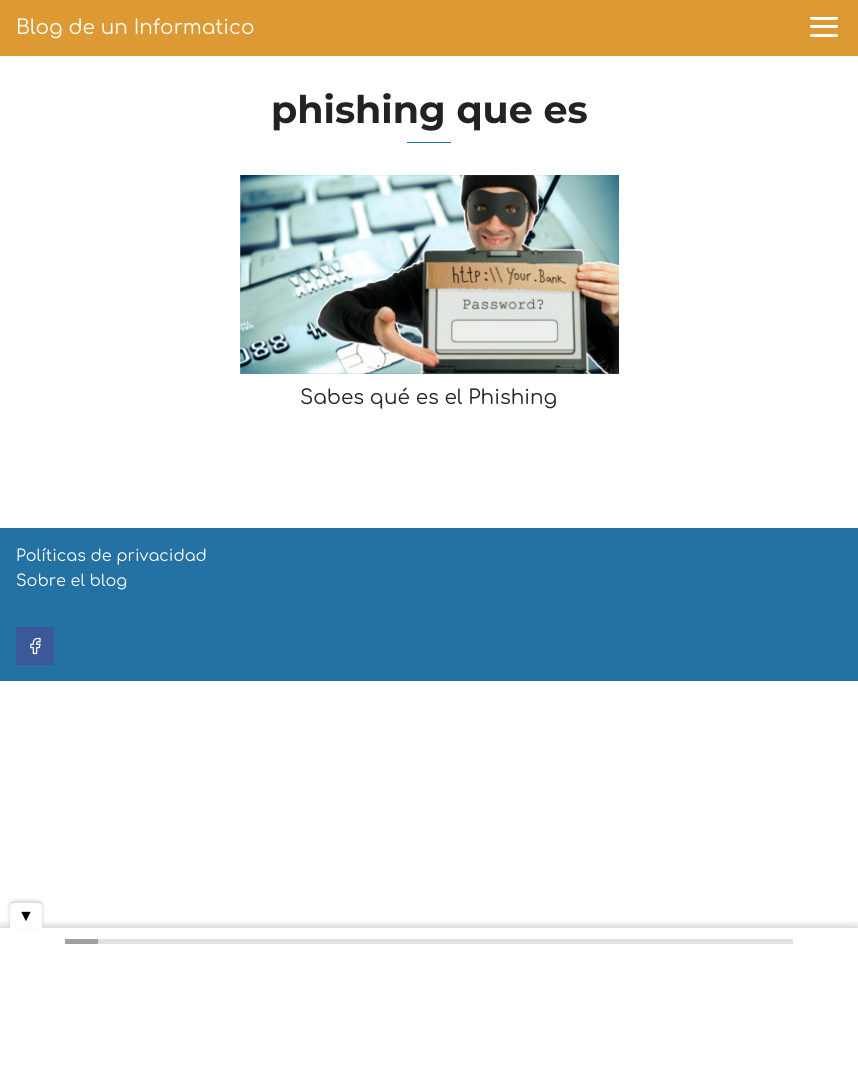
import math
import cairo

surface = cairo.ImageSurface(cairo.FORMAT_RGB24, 858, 1068)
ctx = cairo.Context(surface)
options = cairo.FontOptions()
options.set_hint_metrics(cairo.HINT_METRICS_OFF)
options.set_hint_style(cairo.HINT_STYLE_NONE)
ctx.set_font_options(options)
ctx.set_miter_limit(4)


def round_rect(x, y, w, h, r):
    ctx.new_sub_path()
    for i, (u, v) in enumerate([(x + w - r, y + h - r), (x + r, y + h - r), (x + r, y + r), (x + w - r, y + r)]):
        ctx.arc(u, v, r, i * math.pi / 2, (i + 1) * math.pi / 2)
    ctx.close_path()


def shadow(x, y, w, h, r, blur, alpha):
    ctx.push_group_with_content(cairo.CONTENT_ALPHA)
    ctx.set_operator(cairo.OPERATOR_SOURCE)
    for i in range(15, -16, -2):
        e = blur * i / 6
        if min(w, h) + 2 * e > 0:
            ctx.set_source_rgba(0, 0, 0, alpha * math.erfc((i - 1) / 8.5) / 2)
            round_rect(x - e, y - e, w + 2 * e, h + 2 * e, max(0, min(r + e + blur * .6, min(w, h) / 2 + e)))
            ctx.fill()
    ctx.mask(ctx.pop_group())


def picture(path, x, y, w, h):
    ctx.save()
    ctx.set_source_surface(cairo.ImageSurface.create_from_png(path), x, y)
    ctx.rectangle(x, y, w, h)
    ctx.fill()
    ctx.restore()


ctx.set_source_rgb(1, 1, 1)
ctx.paint()
ctx.set_source_rgb(0.867, 0.6, 0.2)
ctx.rectangle(0, 0, 858, 56)
ctx.fill()
ctx.select_font_face("Comfortaa")
ctx.set_font_size(20)
ctx.set_source_rgb(1, 1, 1)
ctx.move_to(16, 34)
ctx.show_text("Blog de un Informatico")
round_rect(810, 17, 28, 3, 1.5)
ctx.fill()
round_rect(810, 25, 28, 3, 1.5)
ctx.fill()
round_rect(810, 34, 28, 3, 1.5)
ctx.fill()
ctx.select_font_face("Montserrat Thin")
ctx.set_font_size(38)
ctx.set_source_rgb(0.133, 0.133, 0.133)
ctx.move_to(271, 123)
ctx.show_text("phishing que es")
ctx.set_source_rgb(0.141, 0.443, 0.639)
ctx.rectangle(407, 142, 44, 1)
ctx.fill()
picture("img1.png", 240, 175, 379, 199)
ctx.select_font_face("Comfortaa")
ctx.set_font_size(20)
ctx.set_source_rgb(0.133, 0.133, 0.133)
ctx.move_to(300, 404)
ctx.show_text("Sabes qué es el Phishing")
ctx.set_source_rgb(0.141, 0.443, 0.639)
ctx.rectangle(0, 528, 858, 153)
ctx.fill()
ctx.set_font_size(16)
ctx.set_source_rgb(1, 1, 1)
ctx.move_to(16, 561)
ctx.show_text("Políticas de privacidad")
ctx.move_to(16, 586)
ctx.show_text("Sobre el blog")
ctx.set_source_rgb(0.231, 0.349, 0.596)
ctx.rectangle(16, 627, 38, 38)
ctx.fill()
picture("img2.png", 30, 637, 11, 18)
ctx.save()
ctx.rectangle(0, 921, 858, 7)
ctx.clip()
ctx.set_source_rgb(0, 0, 0)
shadow(0, 926, 858, 140, 0, 4, 0.2)
ctx.restore()
ctx.set_source_rgb(0, 0, 0)
shadow(10, 901, 32, 26, 4, 2, 0.2)
ctx.set_source_rgb(1, 1, 1)
ctx.new_path()
ctx.move_to(14, 903)
ctx.line_to(38, 903)
ctx.curve_to(40, 903, 42, 905, 42, 907)
ctx.line_to(42, 929)
ctx.line_to(10, 929)
ctx.line_to(10, 907)
ctx.curve_to(10, 905, 12, 903, 14, 903)
ctx.close_path()
ctx.fill()
ctx.select_font_face("Liberation Sans")
ctx.set_source_rgb(0, 0, 0)
ctx.move_to(18, 921)
ctx.show_text("▼")
picture("img3.png", 65, 939, 728, 5)
surface.write_to_png("page.png")
